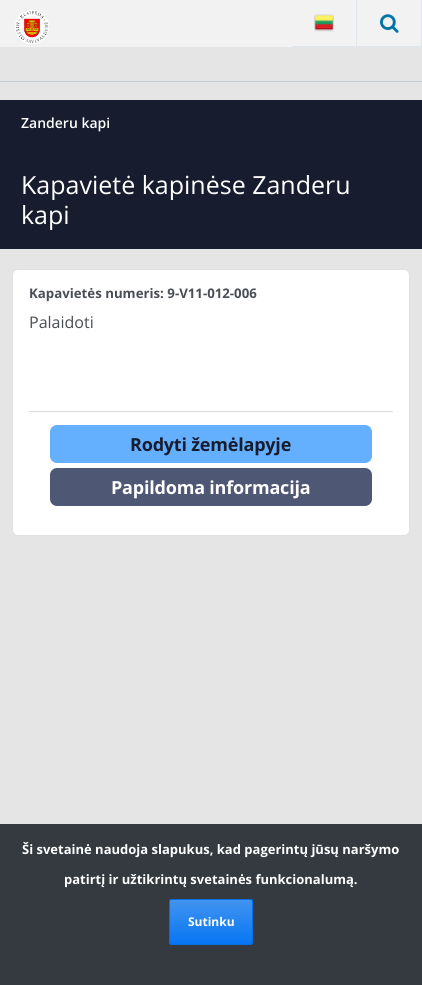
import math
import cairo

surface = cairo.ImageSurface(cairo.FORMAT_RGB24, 422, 985)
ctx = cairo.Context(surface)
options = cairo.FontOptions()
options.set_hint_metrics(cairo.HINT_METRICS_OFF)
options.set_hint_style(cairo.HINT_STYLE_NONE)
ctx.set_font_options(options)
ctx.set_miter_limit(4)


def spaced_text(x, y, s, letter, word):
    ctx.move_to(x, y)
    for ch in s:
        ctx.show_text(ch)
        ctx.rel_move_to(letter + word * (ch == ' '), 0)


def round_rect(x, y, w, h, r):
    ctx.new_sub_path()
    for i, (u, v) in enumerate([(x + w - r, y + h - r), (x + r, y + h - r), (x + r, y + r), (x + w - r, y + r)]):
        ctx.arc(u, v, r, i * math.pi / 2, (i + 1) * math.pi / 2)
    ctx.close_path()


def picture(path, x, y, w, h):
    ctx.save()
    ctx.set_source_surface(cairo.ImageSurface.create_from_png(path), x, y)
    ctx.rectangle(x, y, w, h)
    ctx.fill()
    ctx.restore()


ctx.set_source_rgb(0.898, 0.898, 0.898)
ctx.paint()
ctx.set_source_rgb(0.949, 0.949, 0.949)
ctx.rectangle(0, 0, 421, 47)
ctx.fill()
picture("img1.png", 15, 10, 34, 34)
ctx.set_source_rgb(0.875, 0.898, 0.922)
ctx.rectangle(356, 0, 1, 47)
ctx.fill()
ctx.rectangle(292, 46, 65, 1)
ctx.fill()
picture("img2.png", 314, 14, 20, 18)
ctx.rectangle(421, 0, 1, 47)
ctx.fill()
ctx.rectangle(357, 46, 65, 1)
ctx.fill()
picture("img3.png", 380, 14, 19, 19)
ctx.set_source_rgb(0.761, 0.804, 0.835)
ctx.rectangle(0, 81, 422, 1)
ctx.fill()
ctx.set_source_rgb(0.09, 0.114, 0.184)
ctx.rectangle(0, 100, 422, 149)
ctx.fill()
ctx.select_font_face("Open Sans SemiBold")
ctx.set_font_size(14)
ctx.set_source_rgb(1, 1, 1)
ctx.move_to(21, 128)
ctx.show_text("Zanderu kapi")
ctx.select_font_face("Open Sans")
ctx.set_font_size(25)
ctx.move_to(21, 194)
ctx.show_text("Kapavietė kapinėse Zanderu")
ctx.move_to(21, 224)
ctx.show_text("kapi")
round_rect(12, 269, 398, 267, 6)
ctx.fill()
round_rect(12.5, 269.5, 397, 266, 5.5)
ctx.set_source_rgba(0, 0, 0, 0.12)
ctx.set_line_width(1)
ctx.stroke()
ctx.select_font_face("Open Sans", cairo.FONT_SLANT_NORMAL, cairo.FONT_WEIGHT_BOLD)
ctx.set_font_size(13.25)
ctx.set_source_rgb(0.29, 0.306, 0.333)
ctx.move_to(29, 298)
ctx.show_text("Kapavietės numeris: 9-V11-012-006")
ctx.select_font_face("Open Sans")
ctx.set_font_size(16)
ctx.move_to(29, 328)
ctx.show_text("Palaidoti")
ctx.set_source_rgb(0.875, 0.875, 0.875)
ctx.rectangle(29, 411, 364, 1)
ctx.fill()
ctx.set_source_rgb(0.396, 0.686, 1)
round_rect(50, 425, 322, 38, 7)
ctx.fill()
ctx.select_font_face("Open Sans", cairo.FONT_SLANT_NORMAL, cairo.FONT_WEIGHT_BOLD)
ctx.set_font_size(18)
ctx.set_source_rgb(0.09, 0.114, 0.184)
spaced_text(130, 451, "Rodyti žemėlapyje", -0.2, 0)
ctx.set_source_rgb(0.306, 0.341, 0.455)
round_rect(50, 468, 322, 38, 7)
ctx.fill()
ctx.set_source_rgb(1, 1, 1)
spaced_text(111, 494, "Papildoma informacija", -0.2, 0)
ctx.set_source_rgb(0.204, 0.227, 0.251)
ctx.rectangle(0, 824, 422, 161)
ctx.fill()
ctx.set_font_size(13)
ctx.set_source_rgb(1, 1, 1)
ctx.move_to(22, 854)
ctx.show_text("Ši svetainė naudoja slapukus, kad pagerintų jūsų naršymo")
ctx.move_to(64, 884)
ctx.show_text("patirtį ir užtikrintų svetainės funkcionalumą.")
gradient = cairo.LinearGradient(211, 900, 211, 944)
gradient.add_color_stop_rgba(0, 0.259, 0.58, 0.941, 1)
gradient.add_color_stop_rgba(1, 0.027, 0.463, 0.953, 1)
ctx.set_source(gradient)
round_rect(170, 900, 82, 44, 1)
ctx.fill()
round_rect(169.5, 899.5, 83, 45, 1.5)
ctx.set_source_rgb(0.027, 0.435, 0.894)
ctx.stroke()
ctx.set_font_size(12)
ctx.set_source_rgb(1, 1, 1)
ctx.move_to(188, 926)
ctx.show_text("Sutinku")
surface.write_to_png("page.png")
